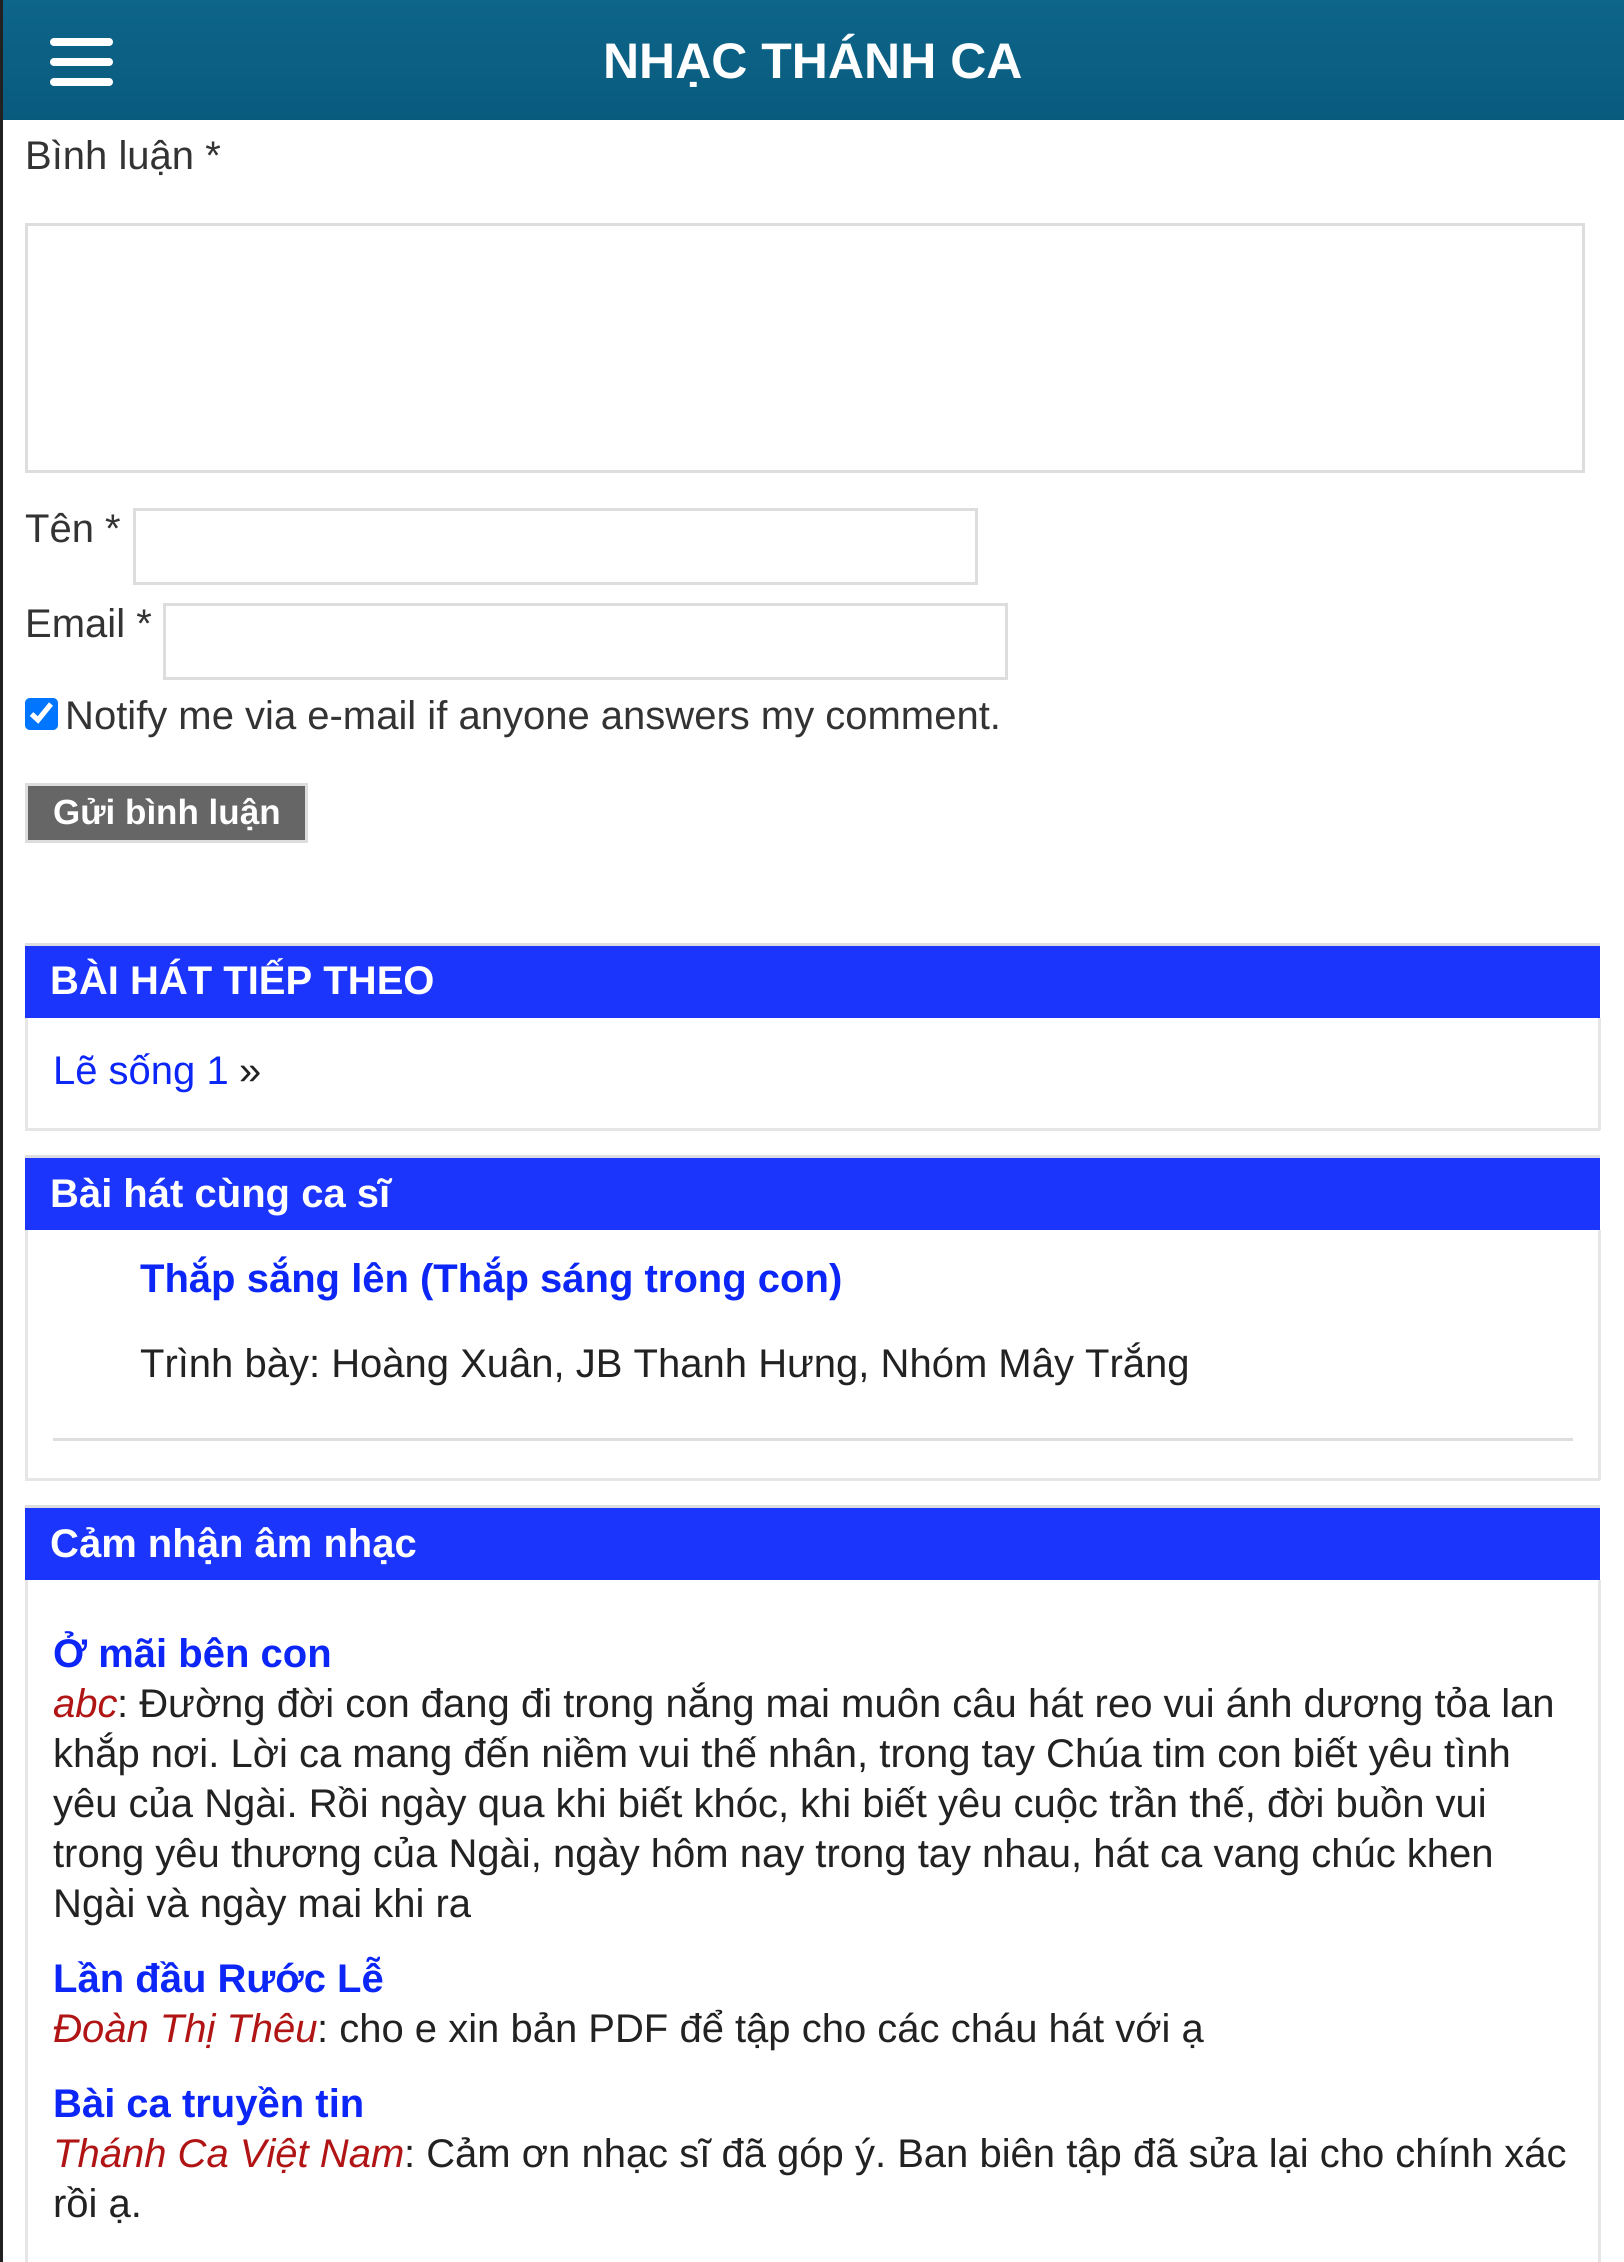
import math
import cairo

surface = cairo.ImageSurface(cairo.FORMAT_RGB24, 1624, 2262)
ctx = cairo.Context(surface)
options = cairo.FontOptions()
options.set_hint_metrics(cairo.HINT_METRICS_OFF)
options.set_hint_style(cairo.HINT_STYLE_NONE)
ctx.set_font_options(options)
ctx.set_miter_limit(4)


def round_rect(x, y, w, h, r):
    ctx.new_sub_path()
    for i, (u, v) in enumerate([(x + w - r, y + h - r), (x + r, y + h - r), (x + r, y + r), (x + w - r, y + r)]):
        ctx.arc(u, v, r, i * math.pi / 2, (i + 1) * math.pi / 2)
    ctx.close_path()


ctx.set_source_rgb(1, 1, 1)
ctx.paint()
gradient = cairo.LinearGradient(813, 0, 813, 120)
gradient.add_color_stop_rgba(0, 0.051, 0.396, 0.541, 1)
gradient.add_color_stop_rgba(1, 0.035, 0.357, 0.49, 1)
ctx.set_source(gradient)
ctx.rectangle(3, 0, 1621, 120)
ctx.fill()
ctx.set_source_rgb(0.129, 0.129, 0.129)
ctx.rectangle(0, 0, 3, 2262)
ctx.fill()
ctx.set_source_rgb(1, 1, 1)
round_rect(50, 58, 63, 8, 4)
ctx.fill()
round_rect(50, 38, 63, 8, 4)
ctx.fill()
round_rect(50, 78, 63, 8, 4)
ctx.fill()
ctx.select_font_face("Liberation Sans", cairo.FONT_SLANT_NORMAL, cairo.FONT_WEIGHT_BOLD)
ctx.set_font_size(50)
ctx.move_to(603, 78)
ctx.show_text("NHẠC THÁNH CA")
ctx.select_font_face("Liberation Sans")
ctx.set_font_size(40)
ctx.set_source_rgb(0.2, 0.2, 0.2)
ctx.move_to(25, 169)
ctx.show_text("Bình luận *")
ctx.rectangle(26.5, 224.5, 1557, 247)
ctx.set_source_rgb(0.867, 0.867, 0.867)
ctx.set_line_width(3)
ctx.stroke()
ctx.set_source_rgb(0.2, 0.2, 0.2)
ctx.move_to(25, 542)
ctx.show_text("Tên *")
ctx.rectangle(134.5, 509.5, 842, 74)
ctx.set_source_rgb(0.867, 0.867, 0.867)
ctx.stroke()
ctx.set_source_rgb(0.2, 0.2, 0.2)
ctx.move_to(25, 637)
ctx.show_text("Email *")
ctx.rectangle(164.5, 604.5, 842, 74)
ctx.set_source_rgb(0.867, 0.867, 0.867)
ctx.stroke()
ctx.set_source_rgb(0, 0.459, 1)
round_rect(25, 698, 33, 32, 5)
ctx.fill()
ctx.new_path()
ctx.move_to(31.5, 714)
ctx.line_to(38, 720)
ctx.line_to(51, 704)
ctx.set_source_rgb(1, 1, 1)
ctx.set_line_width(5.2)
ctx.stroke()
ctx.set_source_rgb(0.2, 0.2, 0.2)
ctx.move_to(65, 729)
ctx.show_text("Notify me via e-mail if anyone answers my comment.")
ctx.set_source_rgb(0.4, 0.4, 0.4)
ctx.rectangle(26.5, 784.5, 280, 57)
ctx.fill_preserve()
ctx.set_source_rgb(0.867, 0.867, 0.867)
ctx.set_line_width(3)
ctx.stroke()
ctx.select_font_face("Liberation Sans", cairo.FONT_SLANT_NORMAL, cairo.FONT_WEIGHT_BOLD)
ctx.set_font_size(35)
ctx.set_source_rgb(1, 1, 1)
ctx.move_to(53, 824)
ctx.show_text("Gửi bình luận")
ctx.set_source_rgb(0.11, 0.208, 0.992)
ctx.rectangle(25, 946, 1575, 72)
ctx.fill()
ctx.set_source_rgb(0.871, 0.871, 0.871)
ctx.rectangle(25, 943, 1575, 3)
ctx.fill()
ctx.set_font_size(40)
ctx.set_source_rgb(1, 1, 1)
ctx.move_to(50, 994)
ctx.show_text("BÀI HÁT TIẾP THEO")
ctx.set_source_rgb(0.902, 0.902, 0.902)
ctx.rectangle(1598, 1018, 3, 112)
ctx.fill()
ctx.rectangle(25, 1128, 1575, 3)
ctx.fill()
ctx.rectangle(25, 1018, 3, 112)
ctx.fill()
ctx.select_font_face("Liberation Sans")
ctx.set_source_rgb(0.047, 0.149, 0.965)
ctx.move_to(53, 1084)
ctx.show_text("Lẽ sống 1")
ctx.set_source_rgb(0.133, 0.133, 0.133)
ctx.move_to(239, 1084)
ctx.show_text("»")
ctx.set_source_rgb(0.11, 0.208, 0.992)
ctx.rectangle(25, 1158, 1575, 72)
ctx.fill()
ctx.set_source_rgb(0.871, 0.871, 0.871)
ctx.rectangle(25, 1155, 1575, 3)
ctx.fill()
ctx.select_font_face("Liberation Sans", cairo.FONT_SLANT_NORMAL, cairo.FONT_WEIGHT_BOLD)
ctx.set_source_rgb(1, 1, 1)
ctx.move_to(50, 1207)
ctx.show_text("Bài hát cùng ca sĩ")
ctx.set_source_rgb(0.902, 0.902, 0.902)
ctx.rectangle(1598, 1230, 3, 250)
ctx.fill()
ctx.rectangle(25, 1478, 1575, 3)
ctx.fill()
ctx.rectangle(25, 1230, 3, 250)
ctx.fill()
ctx.set_source_rgb(0.871, 0.871, 0.871)
ctx.rectangle(53, 1438, 1520, 3)
ctx.fill()
ctx.set_source_rgb(0.047, 0.149, 0.965)
ctx.move_to(140, 1292)
ctx.show_text("Thắp sắng lên (Thắp sáng trong con)")
ctx.select_font_face("Liberation Sans")
ctx.set_source_rgb(0.133, 0.133, 0.133)
ctx.move_to(140, 1377)
ctx.show_text("Trình bày: Hoàng Xuân, JB Thanh Hưng, Nhóm Mây Trắng")
ctx.set_source_rgb(0.11, 0.208, 0.992)
ctx.rectangle(25, 1508, 1575, 72)
ctx.fill()
ctx.set_source_rgb(0.871, 0.871, 0.871)
ctx.rectangle(25, 1505, 1575, 3)
ctx.fill()
ctx.select_font_face("Liberation Sans", cairo.FONT_SLANT_NORMAL, cairo.FONT_WEIGHT_BOLD)
ctx.set_source_rgb(1, 1, 1)
ctx.move_to(50, 1557)
ctx.show_text("Cảm nhận âm nhạc")
ctx.set_source_rgb(0.902, 0.902, 0.902)
ctx.rectangle(1598, 1580, 3, 682)
ctx.fill()
ctx.rectangle(25, 1580, 3, 682)
ctx.fill()
ctx.set_source_rgb(0.047, 0.149, 0.965)
ctx.move_to(53, 1667)
ctx.show_text("Ở mãi bên con")
ctx.select_font_face("Liberation Sans", cairo.FONT_SLANT_ITALIC)
ctx.set_source_rgb(0.694, 0.082, 0.082)
ctx.move_to(53, 1717)
ctx.show_text("abc")
ctx.select_font_face("Liberation Sans")
ctx.set_source_rgb(0.133, 0.133, 0.133)
ctx.move_to(117, 1717)
ctx.show_text(": Đường đời con đang đi trong nắng mai muôn câu hát reo vui ánh dương tỏa lan")
ctx.move_to(53, 1767)
ctx.show_text("khắp nơi. Lời ca mang đến niềm vui thế nhân, trong tay Chúa tim con biết yêu tình")
ctx.move_to(53, 1817)
ctx.show_text("yêu của Ngài. Rồi ngày qua khi biết khóc, khi biết yêu cuộc trần thế, đời buồn vui")
ctx.move_to(53, 1867)
ctx.show_text("trong yêu thương của Ngài, ngày hôm nay trong tay nhau, hát ca vang chúc khen")
ctx.move_to(53, 1917)
ctx.show_text("Ngài và ngày mai khi ra")
ctx.select_font_face("Liberation Sans", cairo.FONT_SLANT_NORMAL, cairo.FONT_WEIGHT_BOLD)
ctx.set_source_rgb(0.047, 0.149, 0.965)
ctx.move_to(53, 1992)
ctx.show_text("Lần đầu Rước Lễ")
ctx.select_font_face("Liberation Sans", cairo.FONT_SLANT_ITALIC)
ctx.set_source_rgb(0.694, 0.082, 0.082)
ctx.move_to(53, 2042)
ctx.show_text("Đoàn Thị Thêu")
ctx.select_font_face("Liberation Sans")
ctx.set_source_rgb(0.133, 0.133, 0.133)
ctx.move_to(317, 2042)
ctx.show_text(": cho e xin bản PDF để tập cho các cháu hát với ạ")
ctx.select_font_face("Liberation Sans", cairo.FONT_SLANT_NORMAL, cairo.FONT_WEIGHT_BOLD)
ctx.set_source_rgb(0.047, 0.149, 0.965)
ctx.move_to(53, 2117)
ctx.show_text("Bài ca truyền tin")
ctx.select_font_face("Liberation Sans", cairo.FONT_SLANT_ITALIC)
ctx.set_source_rgb(0.694, 0.082, 0.082)
ctx.move_to(53, 2167)
ctx.show_text("Thánh Ca Việt Nam")
ctx.select_font_face("Liberation Sans")
ctx.set_source_rgb(0.133, 0.133, 0.133)
ctx.move_to(404, 2167)
ctx.show_text(": Cảm ơn nhạc sĩ đã góp ý. Ban biên tập đã sửa lại cho chính xác")
ctx.move_to(53, 2217)
ctx.show_text("rồi ạ.")
surface.write_to_png("page.png")
